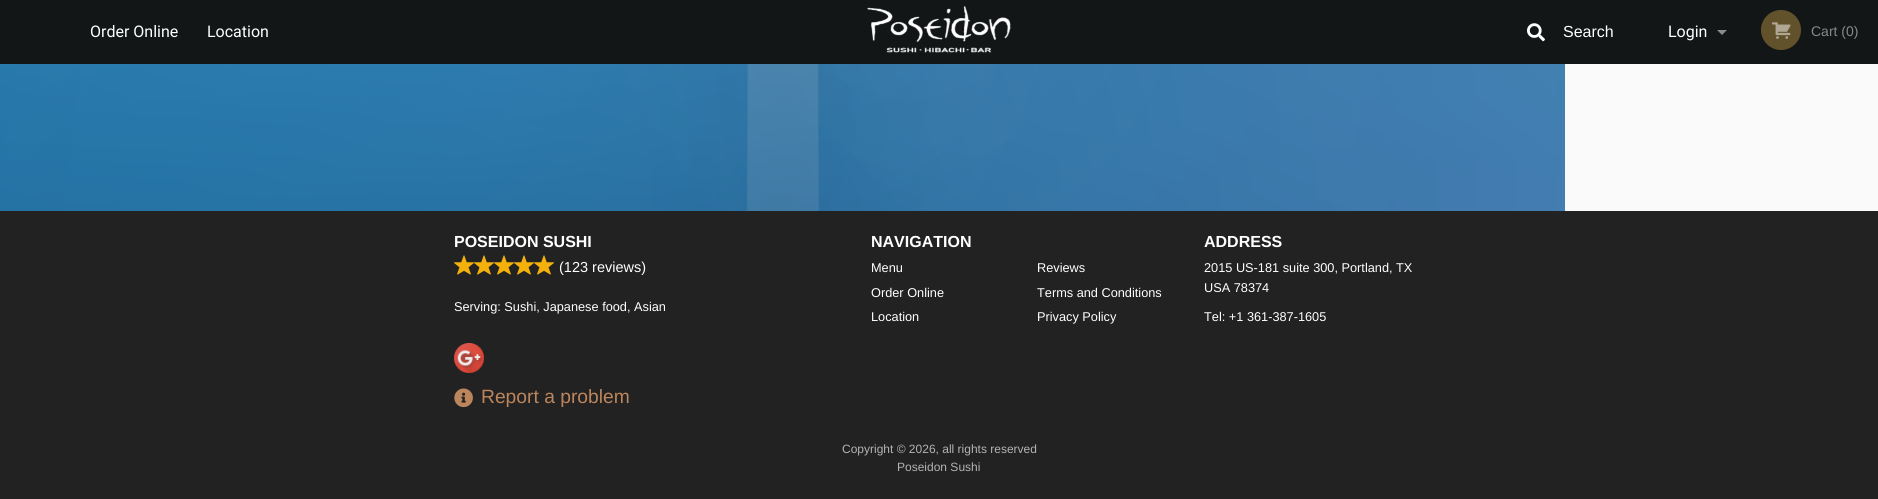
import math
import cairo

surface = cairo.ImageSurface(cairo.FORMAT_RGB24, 1878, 499)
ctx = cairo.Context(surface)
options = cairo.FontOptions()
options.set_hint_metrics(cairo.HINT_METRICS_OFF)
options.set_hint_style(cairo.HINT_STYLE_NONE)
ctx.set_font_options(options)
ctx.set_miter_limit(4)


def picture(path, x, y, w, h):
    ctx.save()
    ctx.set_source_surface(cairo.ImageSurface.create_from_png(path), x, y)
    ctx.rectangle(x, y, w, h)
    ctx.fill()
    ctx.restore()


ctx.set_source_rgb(0.133, 0.133, 0.133)
ctx.paint()
ctx.set_source_rgb(0.078, 0.086, 0.086)
ctx.rectangle(0, 0, 1878, 64)
ctx.fill()
picture("img1.png", 867, 6, 144, 47)
ctx.select_font_face("Roboto")
ctx.set_font_size(16)
ctx.set_source_rgb(1, 1, 1)
ctx.move_to(90, 37)
ctx.show_text("Order Online")
ctx.move_to(207, 37)
ctx.show_text("Location")
picture("img2.png", 1527, 23, 18, 19)
ctx.select_font_face("Liberation Sans")
ctx.move_to(1563, 37)
ctx.show_text("Search")
ctx.select_font_face("Roboto")
ctx.move_to(1668, 37)
ctx.show_text("Login")
ctx.set_source_rgb(0.541, 0.545, 0.545)
ctx.new_path()
ctx.move_to(1717, 30)
ctx.line_to(1727, 30)
ctx.line_to(1722, 35)
ctx.close_path()
ctx.fill()
ctx.set_source_rgb(0.384, 0.322, 0.169)
ctx.arc(1781, 30, 20, 0, 2 * math.pi)
ctx.fill()
picture("img3.png", 1772, 22, 19, 17)
ctx.select_font_face("Liberation Sans")
ctx.set_font_size(14)
ctx.set_source_rgb(0.533, 0.533, 0.533)
ctx.move_to(1811, 36)
ctx.show_text("Cart (0)")
picture("img4.png", 0, 64, 1565, 147)
ctx.set_source_rgb(0.98, 0.98, 0.98)
ctx.rectangle(1565, 64, 313, 147)
ctx.fill()
ctx.select_font_face("Liberation Sans", cairo.FONT_SLANT_NORMAL, cairo.FONT_WEIGHT_BOLD)
ctx.set_font_size(16)
ctx.set_source_rgb(1, 1, 1)
ctx.move_to(454, 247)
ctx.show_text("POSEIDON SUSHI")
picture("img5.png", 454, 255, 20, 20)
picture("img5.png", 474, 255, 20, 20)
picture("img5.png", 494, 255, 20, 20)
picture("img5.png", 514, 255, 20, 20)
picture("img5.png", 534, 255, 20, 20)
ctx.select_font_face("Liberation Sans")
ctx.set_font_size(14.5)
ctx.move_to(559, 272)
ctx.show_text("(123 reviews)")
ctx.set_font_size(12.75)
ctx.move_to(454, 311)
ctx.show_text("Serving: Sushi, Japanese food, Asian")
picture("img6.png", 454, 343, 30, 30)
picture("img7.png", 454, 388, 19, 20)
ctx.set_font_size(19.25)
ctx.set_source_rgb(0.737, 0.522, 0.357)
ctx.move_to(481, 403)
ctx.show_text("Report a problem")
ctx.select_font_face("Liberation Sans", cairo.FONT_SLANT_NORMAL, cairo.FONT_WEIGHT_BOLD)
ctx.set_font_size(16)
ctx.set_source_rgb(1, 1, 1)
ctx.move_to(871, 247)
ctx.show_text("NAVIGATION")
ctx.select_font_face("Liberation Sans")
ctx.set_font_size(12.75)
ctx.move_to(871, 272)
ctx.show_text("Menu")
ctx.move_to(871, 297)
ctx.show_text("Order Online")
ctx.move_to(871, 321)
ctx.show_text("Location")
ctx.move_to(1037, 272)
ctx.show_text("Reviews")
ctx.move_to(1037, 297)
ctx.show_text("Terms and Conditions")
ctx.move_to(1037, 321)
ctx.show_text("Privacy Policy")
ctx.select_font_face("Liberation Sans", cairo.FONT_SLANT_NORMAL, cairo.FONT_WEIGHT_BOLD)
ctx.set_font_size(16)
ctx.move_to(1204, 247)
ctx.show_text("ADDRESS")
ctx.select_font_face("Liberation Sans")
ctx.set_font_size(12.75)
ctx.move_to(1204, 272)
ctx.show_text("2015 US-181 suite 300, Portland, TX")
ctx.move_to(1204, 292)
ctx.show_text("USA 78374")
ctx.move_to(1204, 321)
ctx.show_text("Tel: +1 361-387-1605")
ctx.set_font_size(12)
ctx.set_source_rgb(0.702, 0.702, 0.702)
ctx.move_to(842, 453)
ctx.show_text("Copyright © 2026, all rights reserved")
ctx.move_to(897, 471)
ctx.show_text("Poseidon Sushi")
surface.write_to_png("page.png")
